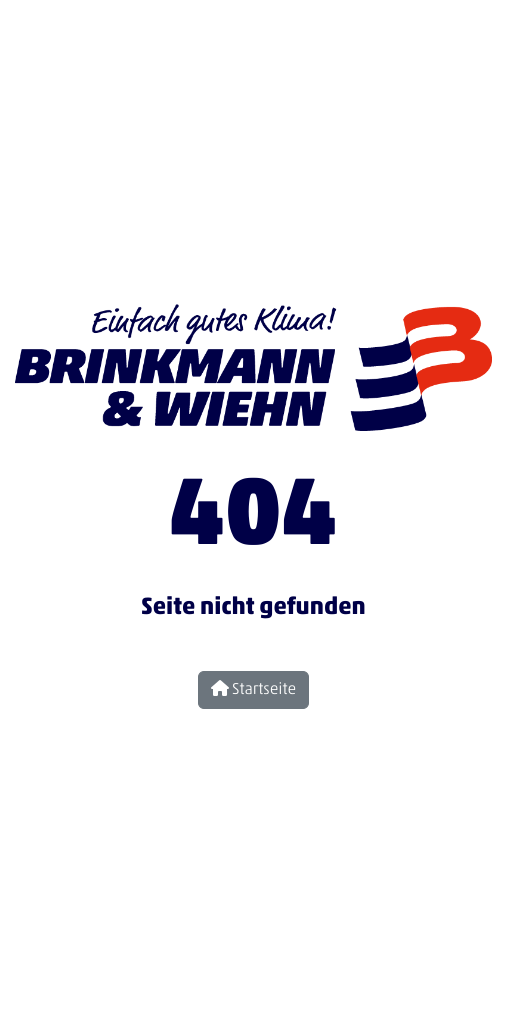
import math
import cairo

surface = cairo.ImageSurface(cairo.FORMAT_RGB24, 507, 1011)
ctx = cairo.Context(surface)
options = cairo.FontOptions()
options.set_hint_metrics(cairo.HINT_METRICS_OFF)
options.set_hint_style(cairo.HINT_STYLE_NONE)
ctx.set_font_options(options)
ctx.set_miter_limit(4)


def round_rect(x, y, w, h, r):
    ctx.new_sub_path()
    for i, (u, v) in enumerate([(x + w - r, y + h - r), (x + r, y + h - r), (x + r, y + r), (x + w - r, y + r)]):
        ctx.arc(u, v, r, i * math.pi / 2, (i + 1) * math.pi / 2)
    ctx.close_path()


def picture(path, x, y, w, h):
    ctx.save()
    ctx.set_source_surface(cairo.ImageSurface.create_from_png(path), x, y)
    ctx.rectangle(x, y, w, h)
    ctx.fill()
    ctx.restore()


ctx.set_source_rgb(1, 1, 1)
ctx.paint()
picture("img1.png", 15, 304, 477, 127)
ctx.select_font_face("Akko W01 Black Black")
ctx.set_font_size(96)
ctx.set_source_rgb(0, 0, 0.278)
ctx.move_to(169, 544)
ctx.show_text("404")
ctx.select_font_face("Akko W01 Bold", cairo.FONT_SLANT_NORMAL, cairo.FONT_WEIGHT_BOLD)
ctx.set_font_size(24)
ctx.move_to(141, 614)
ctx.show_text("Seite nicht gefunden")
ctx.set_source_rgb(0.424, 0.459, 0.49)
round_rect(198.5, 671.5, 110, 37, 5.5)
ctx.fill_preserve()
ctx.set_line_width(1)
ctx.stroke()
picture("img2.png", 211, 680, 18, 16)
ctx.select_font_face("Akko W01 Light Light")
ctx.set_font_size(16)
ctx.set_source_rgb(1, 1, 1)
ctx.move_to(232, 694)
ctx.show_text("Startseite")
surface.write_to_png("page.png")
